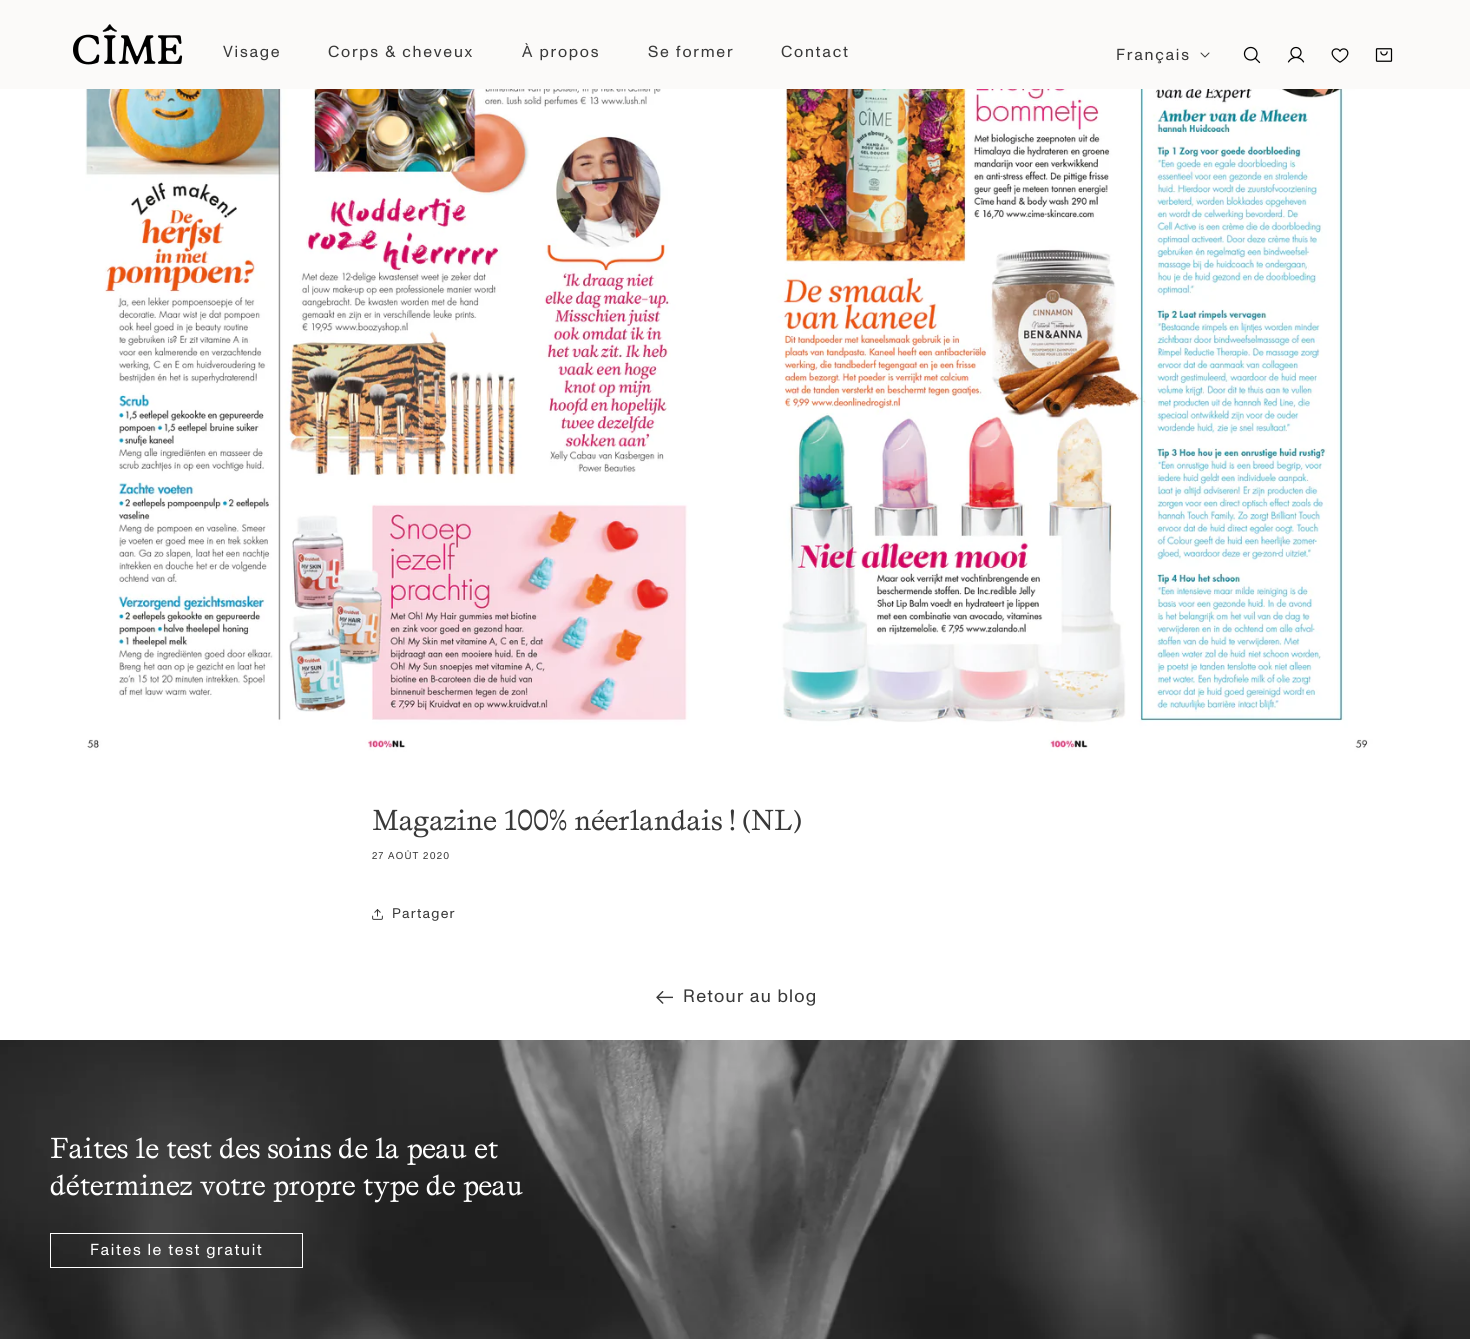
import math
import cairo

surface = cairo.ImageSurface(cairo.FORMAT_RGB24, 1470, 1339)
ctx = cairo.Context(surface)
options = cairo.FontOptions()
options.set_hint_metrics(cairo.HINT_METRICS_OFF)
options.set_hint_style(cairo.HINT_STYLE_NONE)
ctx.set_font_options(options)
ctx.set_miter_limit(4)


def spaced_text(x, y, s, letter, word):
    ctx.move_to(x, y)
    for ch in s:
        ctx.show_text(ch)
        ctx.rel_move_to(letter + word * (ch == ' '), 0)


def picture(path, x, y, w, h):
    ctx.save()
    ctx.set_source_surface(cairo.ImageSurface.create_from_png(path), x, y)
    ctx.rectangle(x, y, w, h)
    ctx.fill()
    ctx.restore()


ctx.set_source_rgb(1, 1, 1)
ctx.paint()
ctx.set_source_rgb(0.984, 0.98, 0.973)
ctx.rectangle(0, 0, 1470, 89)
ctx.fill()
picture("img1.png", 73, 24, 110, 41)
ctx.select_font_face("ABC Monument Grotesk")
ctx.set_font_size(16)
ctx.set_source_rgb(0.224, 0.224, 0.224)
spaced_text(223, 57, "Visage", 1.75, 0)
spaced_text(328, 57, "Corps & cheveux", 1.75, 0)
spaced_text(522, 57, "À propos", 1.75, 0)
spaced_text(648, 57, "Se former", 1.75, 0)
spaced_text(781, 57, "Contact", 1.75, 0)
spaced_text(1116, 60, "Français", 1.75, 0)
picture("img2.png", 1200, 52, 10, 6)
picture("img3.png", 1243, 46, 18, 18)
picture("img4.png", 1287, 46, 18, 17)
picture("img5.png", 1331, 48, 18, 15)
picture("img6.png", 1375, 48, 18, 14)
picture("img7.png", 85, 89, 1300, 663)
ctx.select_font_face("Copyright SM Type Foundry")
ctx.set_font_size(28)
spaced_text(372, 830, "Magazine 100% néerlandais ! (NL)", -0.3, 0)
ctx.select_font_face("ABC Monument Grotesk")
ctx.set_font_size(10)
spaced_text(372, 859, "27 AOÛT 2020", 1.25, 0)
picture("img8.png", 372, 909, 11, 11)
ctx.set_font_size(14)
spaced_text(392, 918, "Partager", 1.25, 0)
picture("img9.png", 656, 991, 17, 13)
ctx.set_font_size(18)
spaced_text(683, 1002, "Retour au blog", 1.25, 0)
picture("img10.png", 0, 1040, 1470, 299)
ctx.select_font_face("Copyright SM Type Foundry")
ctx.set_font_size(28)
ctx.set_source_rgb(1, 1, 1)
spaced_text(50, 1158, "Faites le test des soins de la peau et", -0.3, 0)
spaced_text(50, 1195, "déterminez votre propre type de peau", -0.3, 0)
ctx.rectangle(50.5, 1233.5, 252, 34)
ctx.set_line_width(1)
ctx.stroke()
ctx.select_font_face("ABC Monument Grotesk")
ctx.set_font_size(16)
spaced_text(90, 1255, "Faites le test gratuit", 1.6, 0)
surface.write_to_png("page.png")
